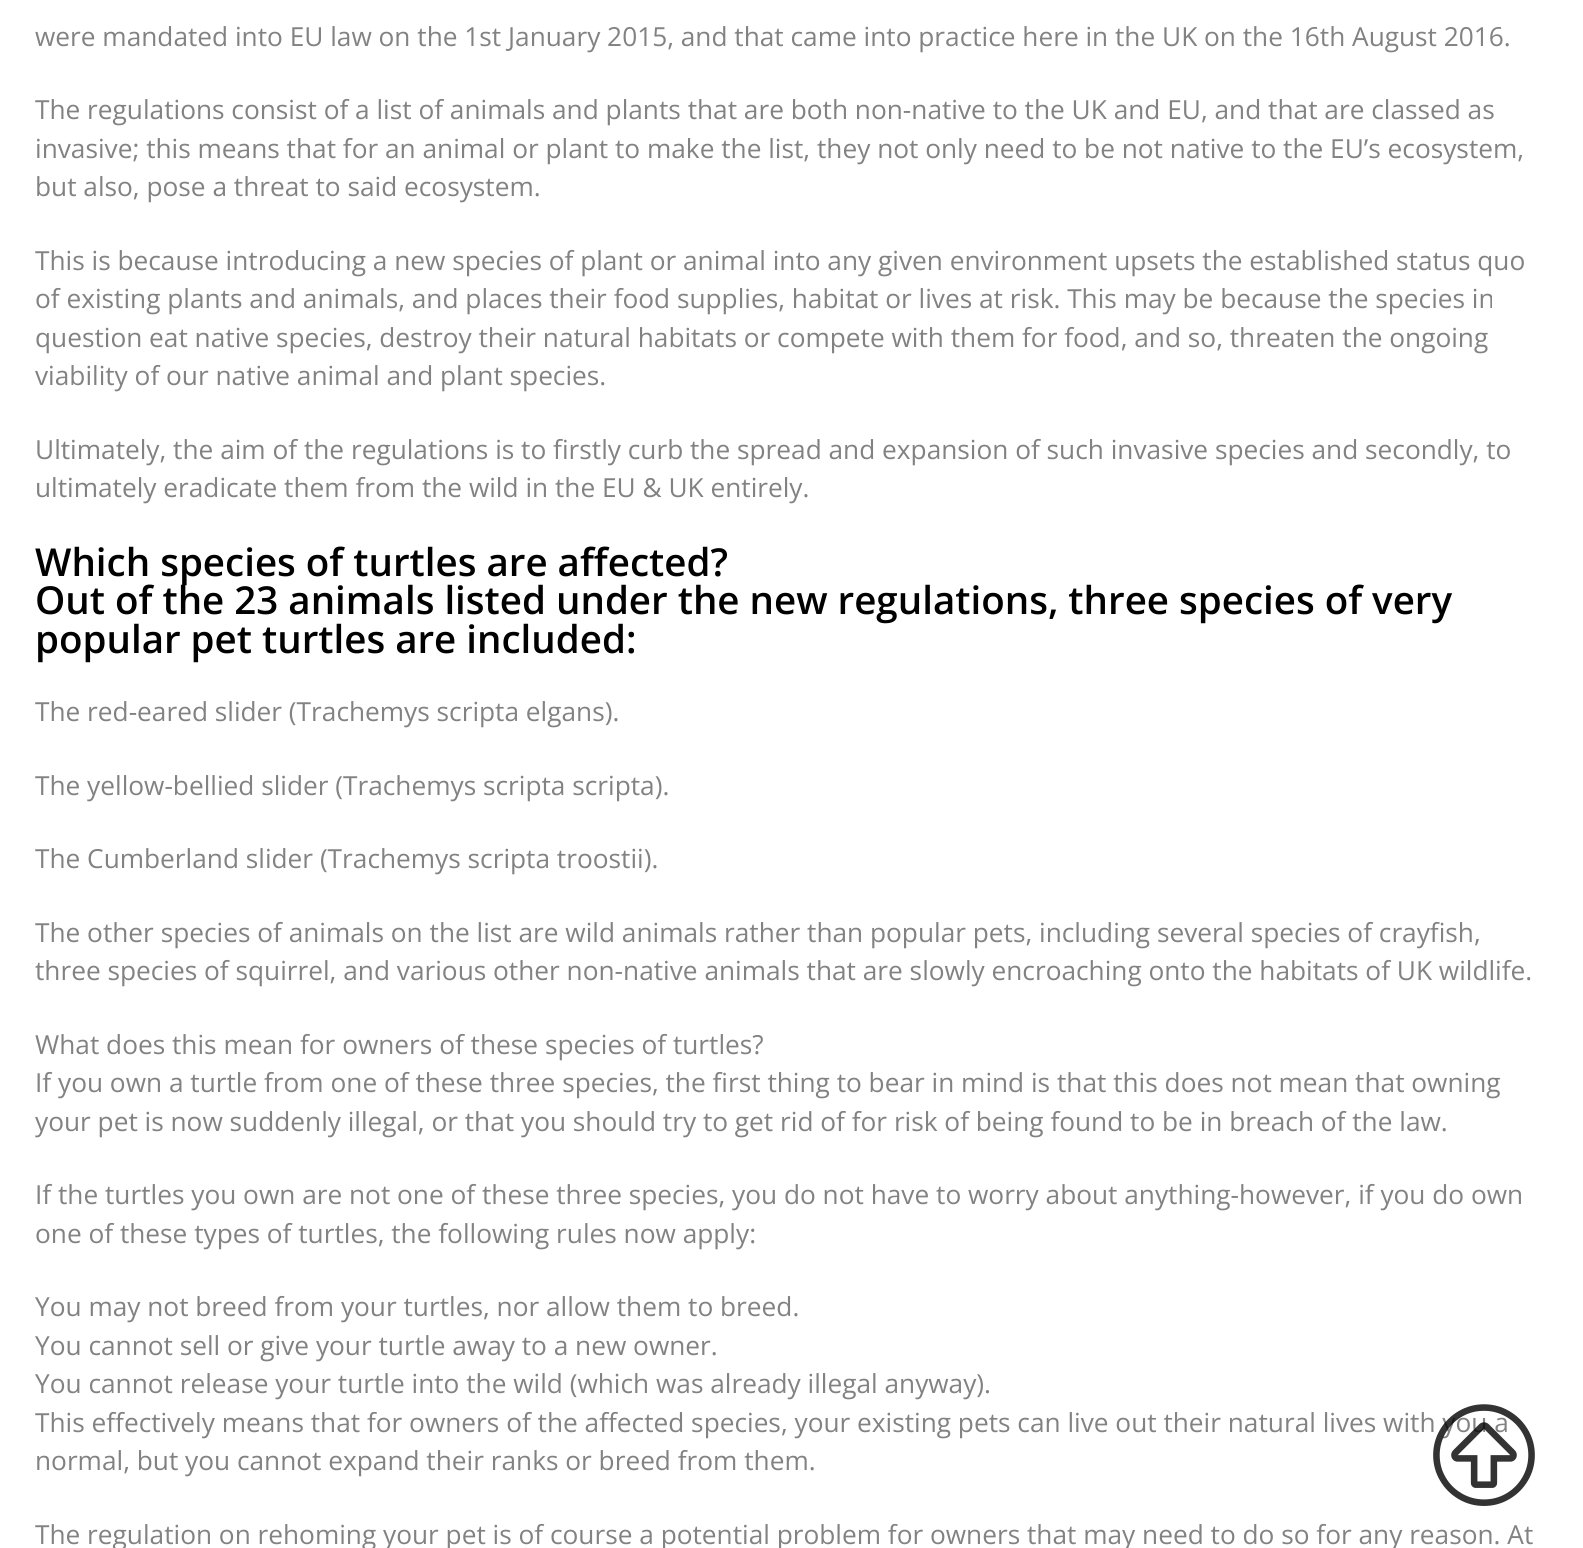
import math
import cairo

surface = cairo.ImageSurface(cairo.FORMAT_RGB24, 1583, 1548)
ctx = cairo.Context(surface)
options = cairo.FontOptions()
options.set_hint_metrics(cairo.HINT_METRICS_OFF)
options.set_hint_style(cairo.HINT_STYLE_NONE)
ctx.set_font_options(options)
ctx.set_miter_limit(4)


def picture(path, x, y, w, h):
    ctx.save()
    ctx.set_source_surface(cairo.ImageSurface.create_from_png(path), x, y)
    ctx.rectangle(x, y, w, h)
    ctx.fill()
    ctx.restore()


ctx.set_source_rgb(1, 1, 1)
ctx.paint()
ctx.select_font_face("Open Sans")
ctx.set_font_size(26.25)
ctx.set_source_rgb(0.514, 0.51, 0.51)
ctx.move_to(35, 46)
ctx.show_text("were mandated into EU law on the 1st January 2015, and that came into practice here in the UK on the 16th August 2016.")
ctx.move_to(35, 119)
ctx.show_text("The regulations consist of a list of animals and plants that are both non-native to the UK and EU, and that are classed as")
ctx.move_to(35, 158)
ctx.show_text("invasive; this means that for an animal or plant to make the list, they not only need to be not native to the EU’s ecosystem,")
ctx.move_to(35, 196)
ctx.show_text("but also, pose a threat to said ecosystem.")
ctx.move_to(35, 270)
ctx.show_text("This is because introducing a new species of plant or animal into any given environment upsets the established status quo")
ctx.move_to(35, 308)
ctx.show_text("of existing plants and animals, and places their food supplies, habitat or lives at risk. This may be because the species in")
ctx.move_to(35, 347)
ctx.show_text("question eat native species, destroy their natural habitats or compete with them for food, and so, threaten the ongoing")
ctx.move_to(35, 385)
ctx.show_text("viability of our native animal and plant species.")
ctx.move_to(35, 459)
ctx.show_text("Ultimately, the aim of the regulations is to firstly curb the spread and expansion of such invasive species and secondly, to")
ctx.move_to(35, 497)
ctx.show_text("ultimately eradicate them from the wild in the EU & UK entirely.")
ctx.select_font_face("Open Sans SemiBold")
ctx.set_font_size(38.5)
ctx.set_source_rgb(0, 0, 0)
ctx.move_to(35, 576)
ctx.show_text("Which species of turtles are affected?")
ctx.move_to(35, 614)
ctx.show_text("Out of the 23 animals listed under the new regulations, three species of very")
ctx.move_to(35, 653)
ctx.show_text("popular pet turtles are included:")
ctx.select_font_face("Open Sans")
ctx.set_font_size(26.25)
ctx.set_source_rgb(0.514, 0.51, 0.51)
ctx.move_to(35, 721)
ctx.show_text("The red-eared slider (Trachemys scripta elgans).")
ctx.move_to(35, 795)
ctx.show_text("The yellow-bellied slider (Trachemys scripta scripta).")
ctx.move_to(35, 868)
ctx.show_text("The Cumberland slider (Trachemys scripta troostii).")
ctx.move_to(35, 942)
ctx.show_text("The other species of animals on the list are wild animals rather than popular pets, including several species of crayfish,")
ctx.move_to(35, 980)
ctx.show_text("three species of squirrel, and various other non-native animals that are slowly encroaching onto the habitats of UK wildlife.")
ctx.move_to(35, 1054)
ctx.show_text("What does this mean for owners of these species of turtles?")
ctx.move_to(35, 1092)
ctx.show_text("If you own a turtle from one of these three species, the first thing to bear in mind is that this does not mean that owning")
ctx.move_to(35, 1131)
ctx.show_text("your pet is now suddenly illegal, or that you should try to get rid of for risk of being found to be in breach of the law.")
ctx.move_to(35, 1204)
ctx.show_text("If the turtles you own are not one of these three species, you do not have to worry about anything-however, if you do own")
ctx.move_to(35, 1243)
ctx.show_text("one of these types of turtles, the following rules now apply:")
ctx.move_to(35, 1316)
ctx.show_text("You may not breed from your turtles, nor allow them to breed.")
ctx.move_to(35, 1355)
ctx.show_text("You cannot sell or give your turtle away to a new owner.")
ctx.move_to(35, 1393)
ctx.show_text("You cannot release your turtle into the wild (which was already illegal anyway).")
ctx.move_to(35, 1432)
ctx.show_text("This effectively means that for owners of the affected species, your existing pets can live out their natural lives with you a")
ctx.move_to(35, 1470)
ctx.show_text("normal, but you cannot expand their ranks or breed from them.")
ctx.move_to(35, 1544)
ctx.show_text("The regulation on rehoming your pet is of course a potential problem for owners that may need to do so for any reason. At")
picture("img1.png", 1433, 1404, 102, 102)
surface.write_to_png("page.png")
